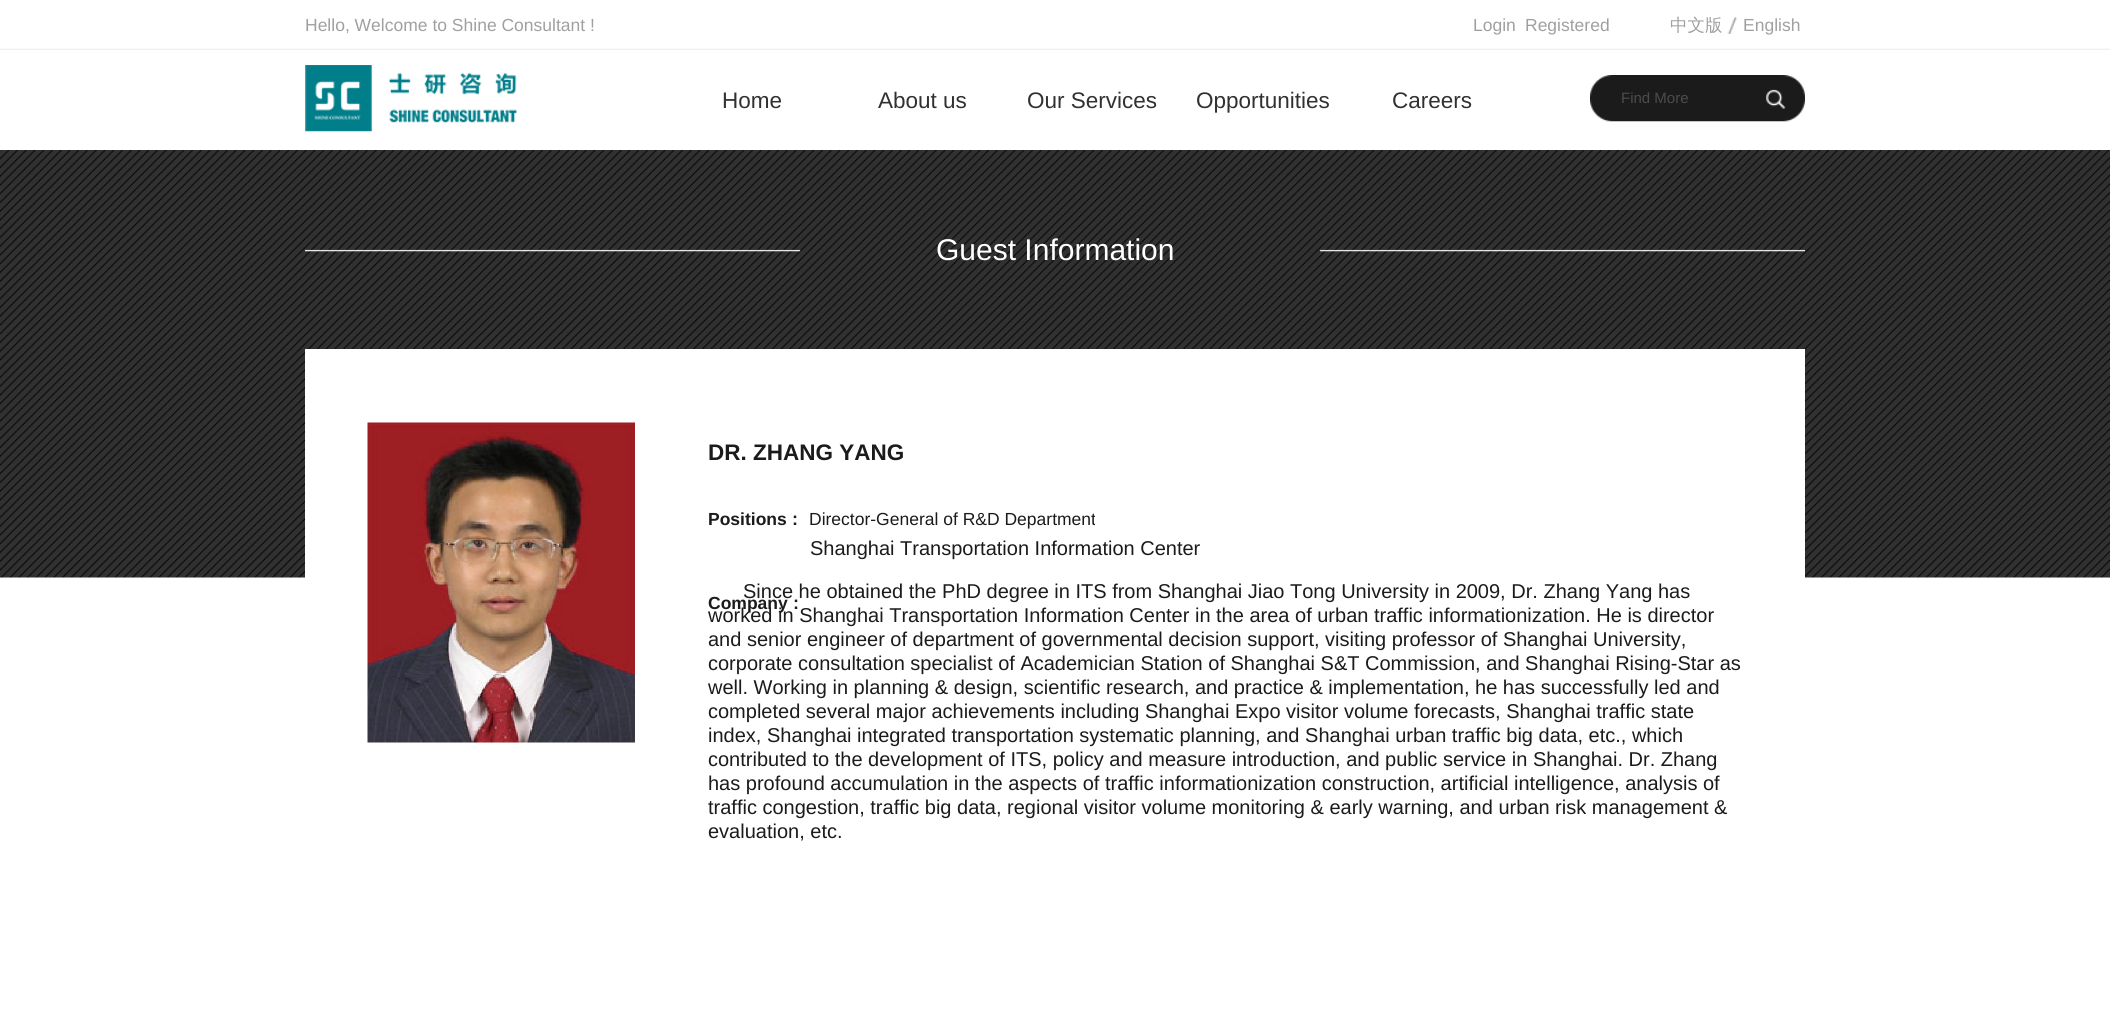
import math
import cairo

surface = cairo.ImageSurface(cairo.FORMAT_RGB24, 2110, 1017)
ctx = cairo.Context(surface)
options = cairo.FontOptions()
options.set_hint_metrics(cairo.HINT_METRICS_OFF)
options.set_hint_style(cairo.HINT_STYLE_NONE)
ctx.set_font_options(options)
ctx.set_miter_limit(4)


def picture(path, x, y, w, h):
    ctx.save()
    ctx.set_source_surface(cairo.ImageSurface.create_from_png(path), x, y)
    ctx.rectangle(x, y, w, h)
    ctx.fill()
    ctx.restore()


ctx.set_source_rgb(1, 1, 1)
ctx.paint()
picture("img1.png", 0, 48, 2110, 2)
ctx.select_font_face("Liberation Sans")
ctx.set_font_size(17.5)
ctx.set_source_rgb(0.627, 0.627, 0.627)
ctx.move_to(305, 31)
ctx.show_text("Hello, Welcome to Shine Consultant !")
ctx.move_to(1473, 31)
ctx.show_text("Login")
ctx.move_to(1525, 31)
ctx.show_text("Registered")
picture("img2.png", 1727, 17, 10, 17)
ctx.select_font_face("WenQuanYi Zen Hei Medium")
ctx.move_to(1670, 31)
ctx.show_text("中文版")
ctx.select_font_face("Liberation Sans")
ctx.move_to(1743, 31)
ctx.show_text("English")
picture("img3.png", 305, 65, 212, 67)
picture("img4.png", 1590, 75, 215, 47)
ctx.set_font_size(15)
ctx.set_source_rgb(0.294, 0.294, 0.294)
ctx.move_to(1621, 103)
ctx.show_text("Find More")
picture("img5.png", 1766, 89, 20, 20)
ctx.set_font_size(22.5)
ctx.set_source_rgb(0.192, 0.192, 0.192)
ctx.move_to(722, 108)
ctx.show_text("Home")
ctx.move_to(878, 108)
ctx.show_text("About us")
ctx.move_to(1027, 108)
ctx.show_text("Our Services")
ctx.move_to(1196, 108)
ctx.show_text("Opportunities")
ctx.move_to(1392, 108)
ctx.show_text("Careers")
picture("img6.png", 0, 150, 2110, 428)
picture("img7.png", 305, 249, 1500, 3)
ctx.set_font_size(30)
ctx.set_source_rgb(1, 1, 1)
ctx.move_to(936, 260)
ctx.show_text("Guest Information")
ctx.rectangle(305, 349, 1500, 229)
ctx.fill()
picture("img8.png", 367, 422, 268, 321)
ctx.select_font_face("Liberation Sans", cairo.FONT_SLANT_NORMAL, cairo.FONT_WEIGHT_BOLD)
ctx.set_font_size(22.5)
ctx.set_source_rgb(0.106, 0.106, 0.106)
ctx.move_to(708, 460)
ctx.show_text("DR. ZHANG YANG")
ctx.set_font_size(17.5)
ctx.move_to(708, 525)
ctx.show_text("Positions")
ctx.select_font_face("WenQuanYi Zen Hei", cairo.FONT_SLANT_NORMAL, cairo.FONT_WEIGHT_BOLD)
ctx.move_to(786, 525)
ctx.show_text("：")
ctx.save()
ctx.rectangle(809, 504, 286, 30)
ctx.clip()
ctx.select_font_face("Liberation Sans")
ctx.move_to(809, 525)
ctx.show_text("Director-General of R&D Department")
ctx.restore()
ctx.select_font_face("Liberation Sans")
ctx.set_font_size(20)
ctx.move_to(810, 555)
ctx.show_text("Shanghai Transportation Information Center")
ctx.select_font_face("Liberation Sans", cairo.FONT_SLANT_NORMAL, cairo.FONT_WEIGHT_BOLD)
ctx.set_font_size(17.5)
ctx.move_to(708, 609)
ctx.show_text("Company")
ctx.select_font_face("WenQuanYi Zen Hei", cairo.FONT_SLANT_NORMAL, cairo.FONT_WEIGHT_BOLD)
ctx.move_to(787, 609)
ctx.show_text("：")
ctx.select_font_face("Liberation Sans")
ctx.set_font_size(20)
ctx.move_to(743, 598)
ctx.show_text("Since he obtained the PhD degree in ITS from Shanghai Jiao Tong University in 2009, Dr. Zhang Yang has")
ctx.move_to(708, 622)
ctx.show_text("worked in Shanghai Transportation Information Center in the area of urban traffic informationization. He is director")
ctx.move_to(708, 646)
ctx.show_text("and senior engineer of department of governmental decision support, visiting professor of Shanghai University,")
ctx.move_to(708, 670)
ctx.show_text("corporate consultation specialist of Academician Station of Shanghai S&T Commission, and Shanghai Rising-Star as")
ctx.move_to(708, 694)
ctx.show_text("well. Working in planning & design, scientific research, and practice & implementation, he has successfully led and")
ctx.move_to(708, 718)
ctx.show_text("completed several major achievements including Shanghai Expo visitor volume forecasts, Shanghai traffic state")
ctx.move_to(708, 742)
ctx.show_text("index, Shanghai integrated transportation systematic planning, and Shanghai urban traffic big data, etc., which")
ctx.move_to(708, 766)
ctx.show_text("contributed to the development of ITS, policy and measure introduction, and public service in Shanghai. Dr. Zhang")
ctx.move_to(708, 790)
ctx.show_text("has profound accumulation in the aspects of traffic informationization construction, artificial intelligence, analysis of")
ctx.move_to(708, 814)
ctx.show_text("traffic congestion, traffic big data, regional visitor volume monitoring & early warning, and urban risk management &")
ctx.move_to(708, 838)
ctx.show_text("evaluation, etc.")
surface.write_to_png("page.png")
